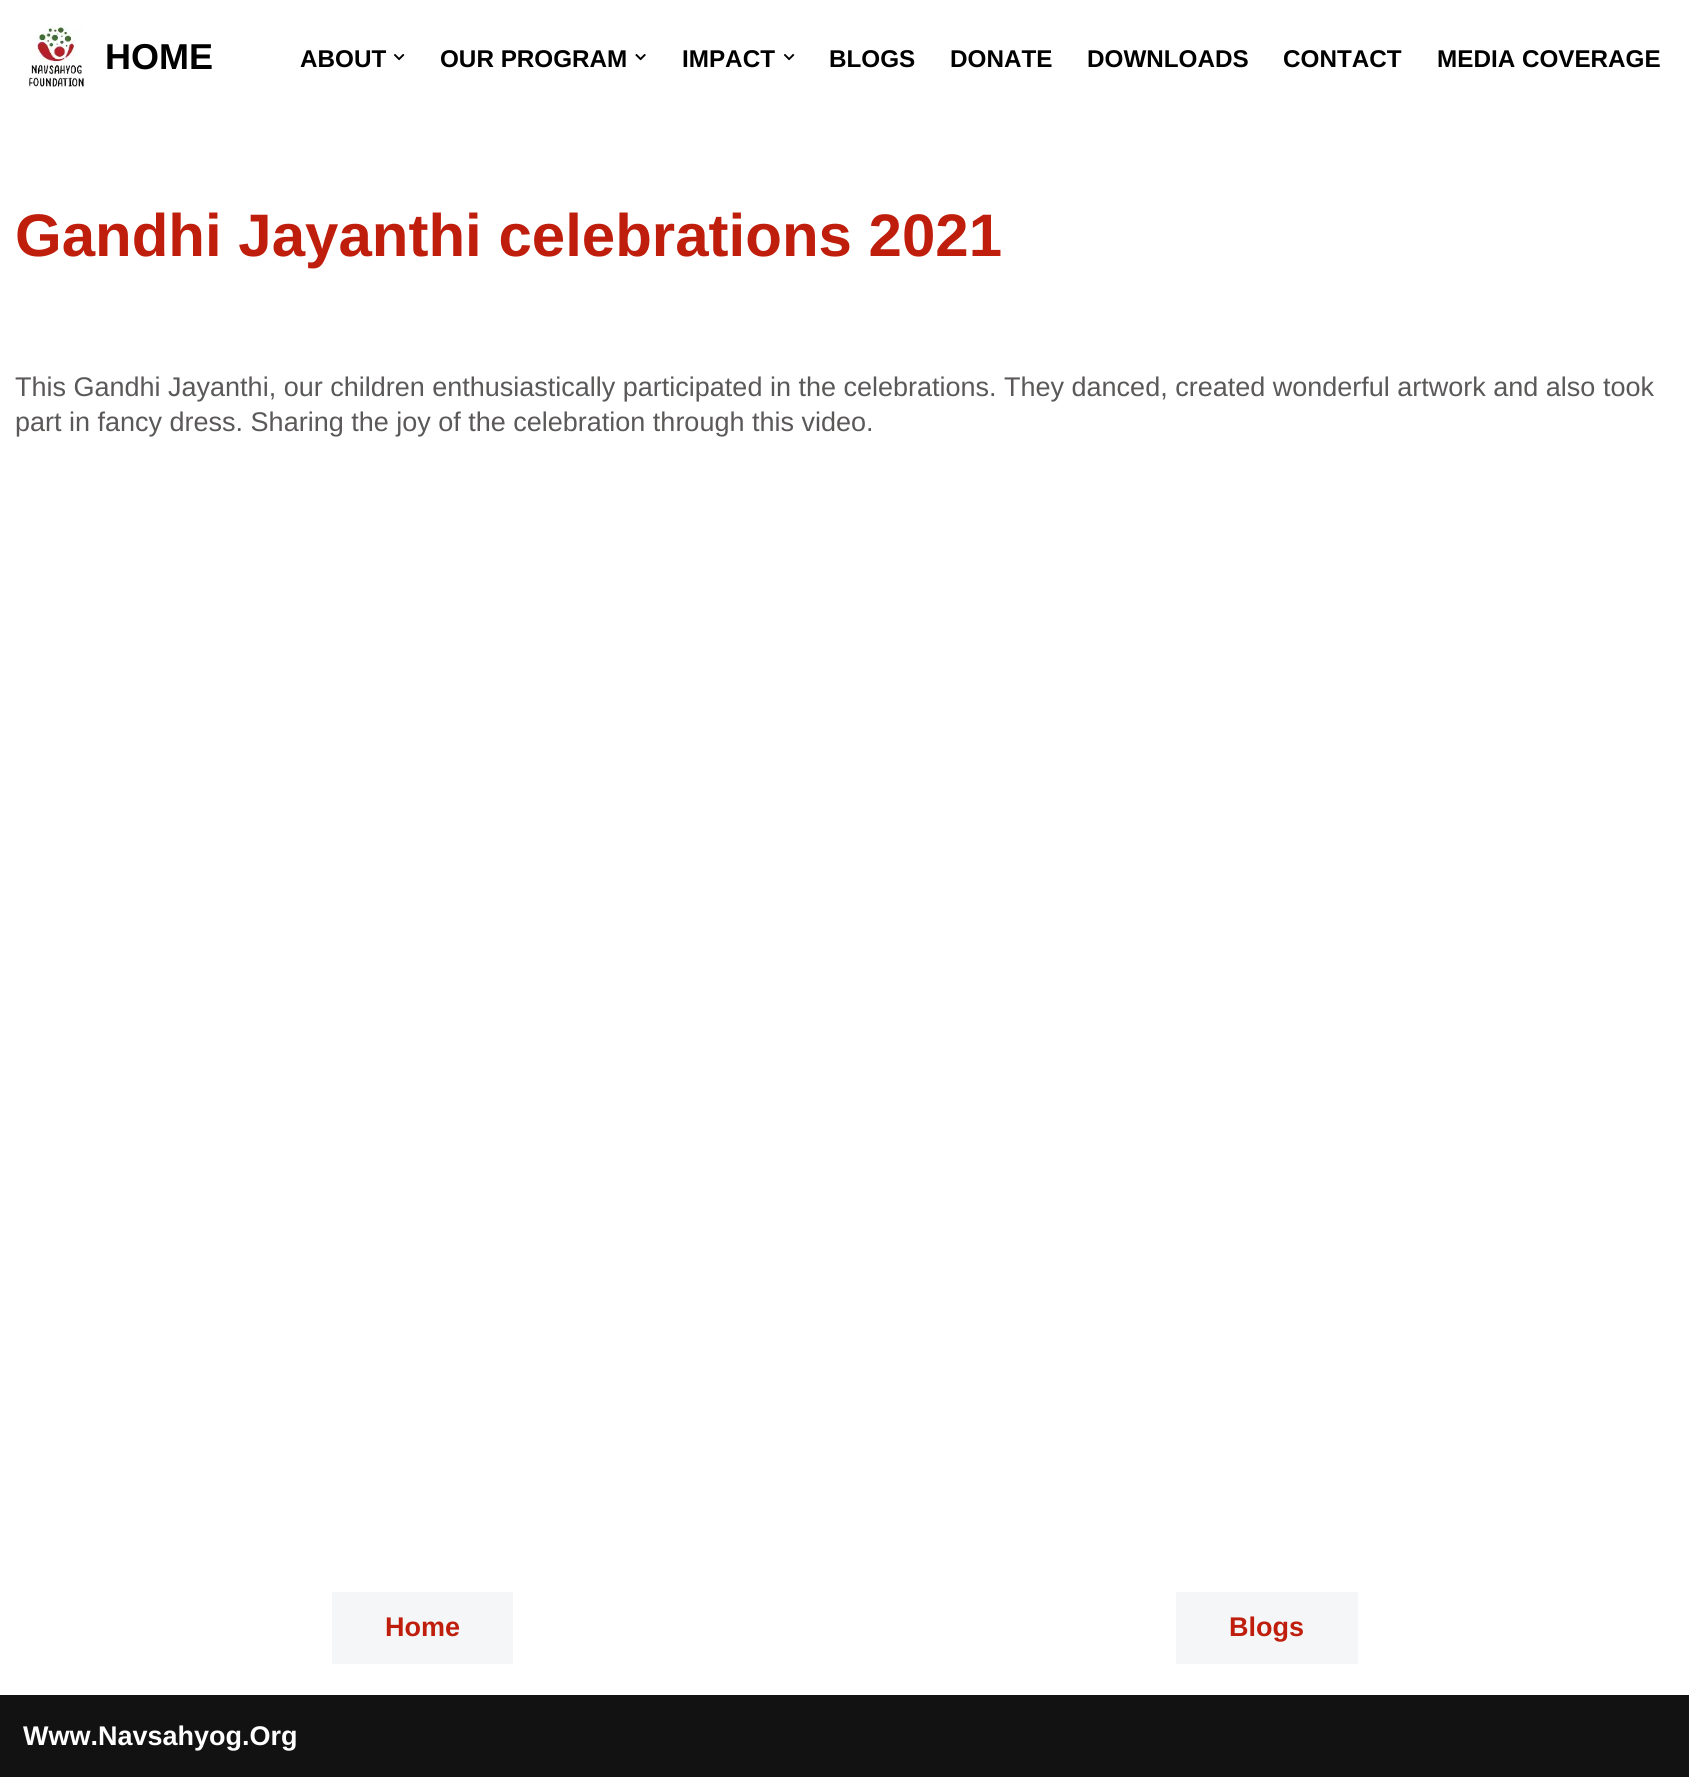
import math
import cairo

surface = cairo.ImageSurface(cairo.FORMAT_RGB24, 1689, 1777)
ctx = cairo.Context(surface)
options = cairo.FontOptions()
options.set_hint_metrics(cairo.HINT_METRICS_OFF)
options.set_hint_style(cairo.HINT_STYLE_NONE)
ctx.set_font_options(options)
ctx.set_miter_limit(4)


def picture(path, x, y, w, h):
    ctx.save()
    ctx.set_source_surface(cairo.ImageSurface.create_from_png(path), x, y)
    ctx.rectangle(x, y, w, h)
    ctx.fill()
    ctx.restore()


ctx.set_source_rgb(1, 1, 1)
ctx.paint()
picture("img1.png", 28, 27, 57, 61)
ctx.select_font_face("Liberation Sans", cairo.FONT_SLANT_NORMAL, cairo.FONT_WEIGHT_BOLD)
ctx.set_font_size(36)
ctx.set_source_rgb(0, 0, 0)
ctx.move_to(105, 69)
ctx.show_text("HOME")
ctx.set_font_size(24.25)
ctx.move_to(300, 67)
ctx.show_text("ABOUT")
picture("img2.png", 394, 54, 11, 7)
ctx.move_to(440, 67)
ctx.show_text("OUR PROGRAM")
picture("img3.png", 635, 54, 11, 7)
ctx.move_to(682, 67)
ctx.show_text("IMPACT")
picture("img2.png", 784, 54, 11, 7)
ctx.move_to(829, 67)
ctx.show_text("BLOGS")
ctx.move_to(950, 67)
ctx.show_text("DONATE")
ctx.move_to(1087, 67)
ctx.show_text("DOWNLOADS")
ctx.move_to(1283, 67)
ctx.show_text("CONTACT")
ctx.move_to(1437, 67)
ctx.show_text("MEDIA COVERAGE")
ctx.set_font_size(60)
ctx.set_source_rgb(0.753, 0.118, 0.047)
ctx.move_to(15, 256)
ctx.show_text("Gandhi Jayanthi celebrations 2021")
ctx.select_font_face("Liberation Sans")
ctx.set_font_size(27)
ctx.set_source_rgb(0.357, 0.345, 0.345)
ctx.move_to(15, 396)
ctx.show_text("This Gandhi Jayanthi, our children enthusiastically participated in the celebrations. They danced, created wonderful artwork and also took")
ctx.move_to(15, 431)
ctx.show_text("part in fancy dress. Sharing the joy of the celebration through this video.")
ctx.set_source_rgb(0.957, 0.961, 0.969)
ctx.rectangle(332, 1592, 181, 72)
ctx.fill()
ctx.select_font_face("Liberation Sans", cairo.FONT_SLANT_NORMAL, cairo.FONT_WEIGHT_BOLD)
ctx.set_source_rgb(0.753, 0.118, 0.047)
ctx.move_to(385, 1636)
ctx.show_text("Home")
ctx.set_source_rgb(0.957, 0.961, 0.969)
ctx.rectangle(1176, 1592, 182, 72)
ctx.fill()
ctx.set_source_rgb(0.753, 0.118, 0.047)
ctx.move_to(1229, 1636)
ctx.show_text("Blogs")
ctx.set_source_rgb(0.071, 0.071, 0.071)
ctx.rectangle(0, 1695, 1689, 82)
ctx.fill()
ctx.set_source_rgb(1, 1, 1)
ctx.move_to(23, 1745)
ctx.show_text("Www.Navsahyog.Org")
surface.write_to_png("page.png")
